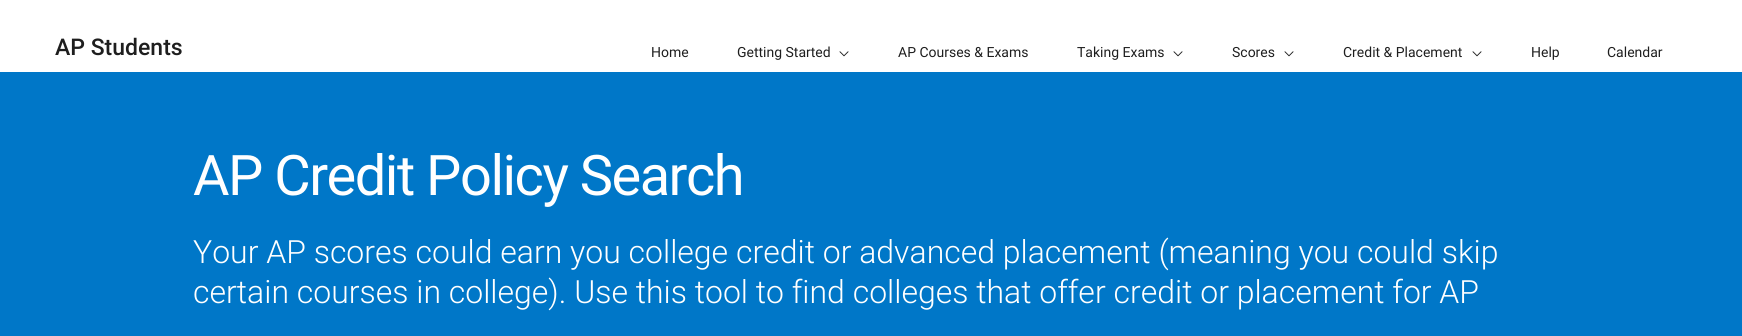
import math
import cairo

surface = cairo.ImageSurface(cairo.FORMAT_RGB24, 1742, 336)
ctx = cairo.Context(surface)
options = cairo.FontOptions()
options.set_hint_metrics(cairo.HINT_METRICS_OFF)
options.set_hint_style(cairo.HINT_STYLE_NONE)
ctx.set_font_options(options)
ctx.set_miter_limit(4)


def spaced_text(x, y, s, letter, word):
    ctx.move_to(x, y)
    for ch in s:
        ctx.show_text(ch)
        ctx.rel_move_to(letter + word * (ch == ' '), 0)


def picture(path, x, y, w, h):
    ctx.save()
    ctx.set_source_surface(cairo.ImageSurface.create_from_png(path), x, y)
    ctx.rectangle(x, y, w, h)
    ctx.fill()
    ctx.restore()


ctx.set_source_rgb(1, 1, 1)
ctx.paint()
ctx.select_font_face("Roboto Medium")
ctx.set_font_size(23)
ctx.set_source_rgb(0.118, 0.118, 0.118)
ctx.move_to(55, 55)
ctx.show_text("AP Students")
ctx.select_font_face("Roboto")
ctx.set_font_size(14)
ctx.move_to(651, 57)
ctx.show_text("Home")
ctx.move_to(737, 57)
ctx.show_text("Getting Started")
picture("img1.png", 839, 51, 10, 6)
ctx.move_to(898, 57)
ctx.show_text("AP Courses & Exams")
ctx.move_to(1077, 57)
ctx.show_text("Taking Exams")
picture("img1.png", 1173, 51, 10, 6)
ctx.move_to(1232, 57)
ctx.show_text("Scores")
picture("img1.png", 1284, 51, 10, 6)
ctx.move_to(1343, 57)
ctx.show_text("Credit & Placement")
picture("img1.png", 1472, 51, 10, 6)
ctx.move_to(1531, 57)
ctx.show_text("Help")
ctx.move_to(1607, 57)
ctx.show_text("Calendar")
ctx.set_source_rgb(0, 0.467, 0.784)
ctx.rectangle(0, 72, 1742, 264)
ctx.fill()
ctx.set_font_size(56)
ctx.set_source_rgb(1, 1, 1)
spaced_text(193, 195, "AP Credit Policy Search", -1.5, 0)
ctx.select_font_face("Roboto Light")
ctx.set_font_size(32)
ctx.move_to(193, 263)
ctx.show_text("Your AP scores could earn you college credit or advanced placement (meaning you could skip")
ctx.move_to(193, 303)
ctx.show_text("certain courses in college). Use this tool to find colleges that offer credit or placement for AP")
surface.write_to_png("page.png")
